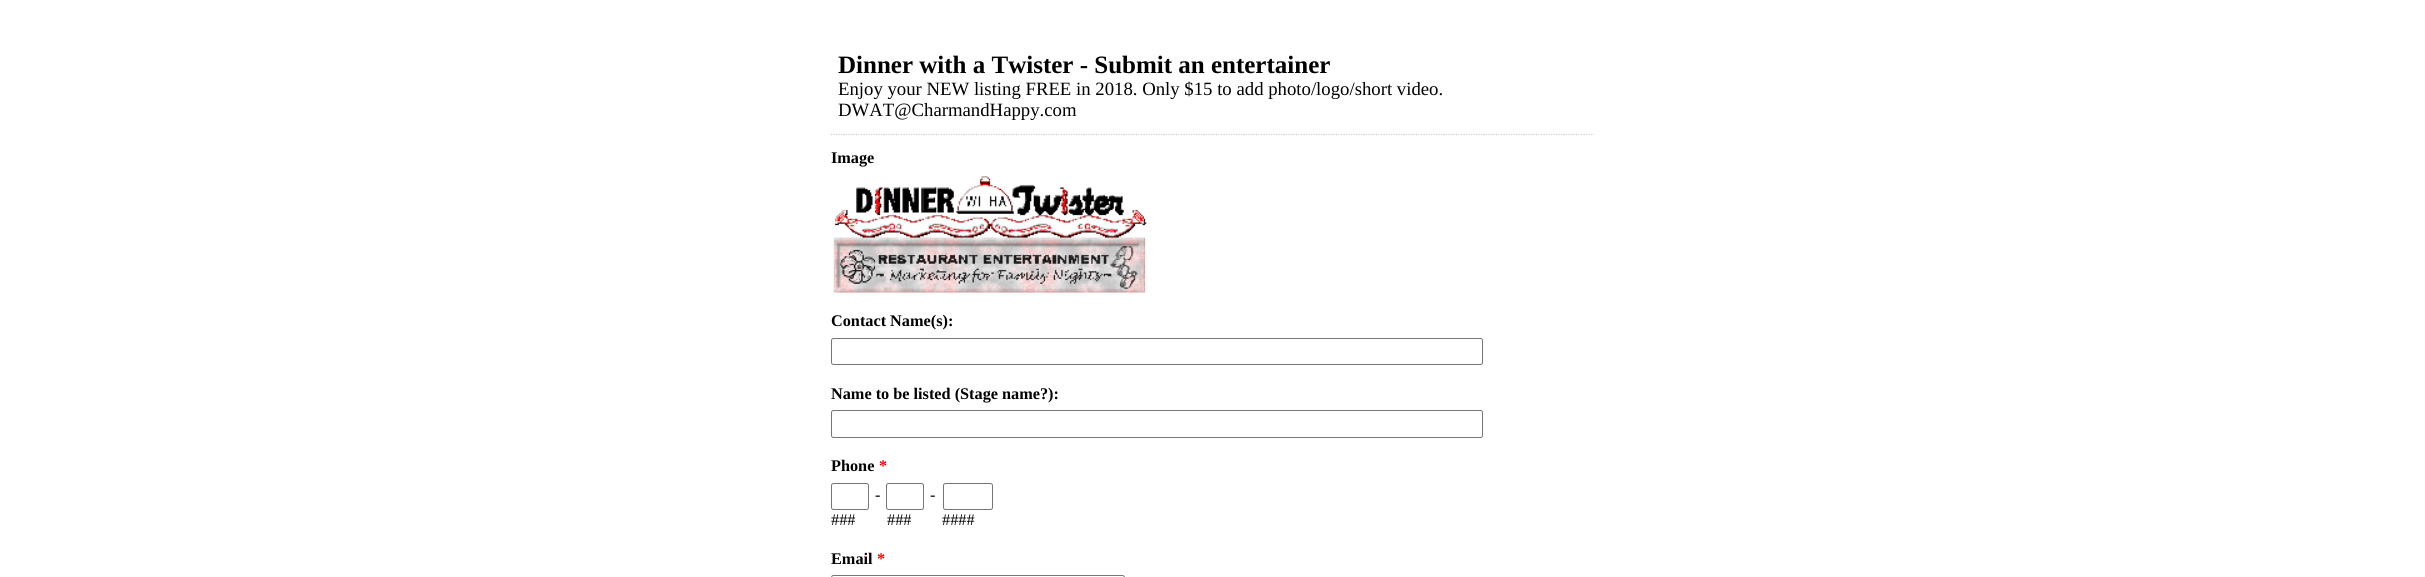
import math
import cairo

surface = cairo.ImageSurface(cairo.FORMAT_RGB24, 2425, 577)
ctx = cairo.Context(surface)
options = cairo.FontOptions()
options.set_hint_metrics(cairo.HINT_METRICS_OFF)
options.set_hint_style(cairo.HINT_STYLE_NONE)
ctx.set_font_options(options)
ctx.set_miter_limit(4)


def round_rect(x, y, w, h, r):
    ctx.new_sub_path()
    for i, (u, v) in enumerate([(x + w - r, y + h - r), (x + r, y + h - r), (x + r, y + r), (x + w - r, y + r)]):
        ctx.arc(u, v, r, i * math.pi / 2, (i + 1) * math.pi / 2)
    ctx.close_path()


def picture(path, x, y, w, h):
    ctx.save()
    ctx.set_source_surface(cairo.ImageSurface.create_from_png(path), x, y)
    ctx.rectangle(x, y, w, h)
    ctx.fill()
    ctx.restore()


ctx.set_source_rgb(1, 1, 1)
ctx.paint()
ctx.new_path()
ctx.move_to(831, 134.5)
ctx.line_to(1594, 134.5)
ctx.set_source_rgb(0.8, 0.8, 0.8)
ctx.set_line_width(1.2)
ctx.set_dash([1.25, 1.25])
ctx.stroke()
ctx.select_font_face("Liberation Serif", cairo.FONT_SLANT_NORMAL, cairo.FONT_WEIGHT_BOLD)
ctx.set_font_size(25)
ctx.set_source_rgb(0, 0, 0)
ctx.move_to(838, 73)
ctx.show_text("Dinner with a Twister - Submit an entertainer")
ctx.select_font_face("Liberation Serif")
ctx.set_font_size(18.75)
ctx.move_to(838, 95)
ctx.show_text("Enjoy your NEW listing FREE in 2018. Only $15 to add photo/logo/short video.")
ctx.move_to(838, 116)
ctx.show_text("DWAT@CharmandHappy.com")
ctx.select_font_face("Liberation Serif", cairo.FONT_SLANT_NORMAL, cairo.FONT_WEIGHT_BOLD)
ctx.set_font_size(16.25)
ctx.move_to(831, 163)
ctx.show_text("Image")
picture("img1.png", 833, 176, 314, 117)
ctx.move_to(831, 326)
ctx.show_text("Contact Name(s):")
round_rect(831.5, 338.5, 651, 26, 2)
ctx.set_source_rgb(0.463, 0.463, 0.463)
ctx.set_line_width(1)
ctx.set_dash([])
ctx.stroke()
ctx.set_source_rgb(0, 0, 0)
ctx.move_to(831, 399)
ctx.show_text("Name to be listed (Stage name?):")
round_rect(831.5, 410.5, 651, 27, 2)
ctx.set_source_rgb(0.463, 0.463, 0.463)
ctx.stroke()
ctx.set_source_rgb(0, 0, 0)
ctx.move_to(831, 471)
ctx.show_text("Phone")
ctx.set_source_rgb(1, 0, 0)
ctx.move_to(879, 471)
ctx.show_text("*")
ctx.select_font_face("Liberation Serif")
ctx.set_source_rgb(0, 0, 0)
ctx.move_to(875, 500)
ctx.show_text("-")
ctx.move_to(930, 500)
ctx.show_text("-")
round_rect(831.5, 483.5, 37, 26, 2)
ctx.set_source_rgb(0.463, 0.463, 0.463)
ctx.stroke()
ctx.set_source_rgb(0, 0, 0)
ctx.move_to(831, 525)
ctx.show_text("###")
round_rect(886.5, 483.5, 37, 26, 2)
ctx.set_source_rgb(0.463, 0.463, 0.463)
ctx.stroke()
ctx.set_source_rgb(0, 0, 0)
ctx.move_to(887, 525)
ctx.show_text("###")
round_rect(943.5, 483.5, 49, 26, 2)
ctx.set_source_rgb(0.463, 0.463, 0.463)
ctx.stroke()
ctx.set_source_rgb(0, 0, 0)
ctx.move_to(942, 525)
ctx.show_text("####")
ctx.select_font_face("Liberation Serif", cairo.FONT_SLANT_NORMAL, cairo.FONT_WEIGHT_BOLD)
ctx.move_to(831, 564)
ctx.show_text("Email")
ctx.set_source_rgb(1, 0, 0)
ctx.move_to(877, 564)
ctx.show_text("*")
round_rect(831.5, 575.5, 293, 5, 2)
ctx.set_source_rgb(0.463, 0.463, 0.463)
ctx.stroke()
surface.write_to_png("page.png")
